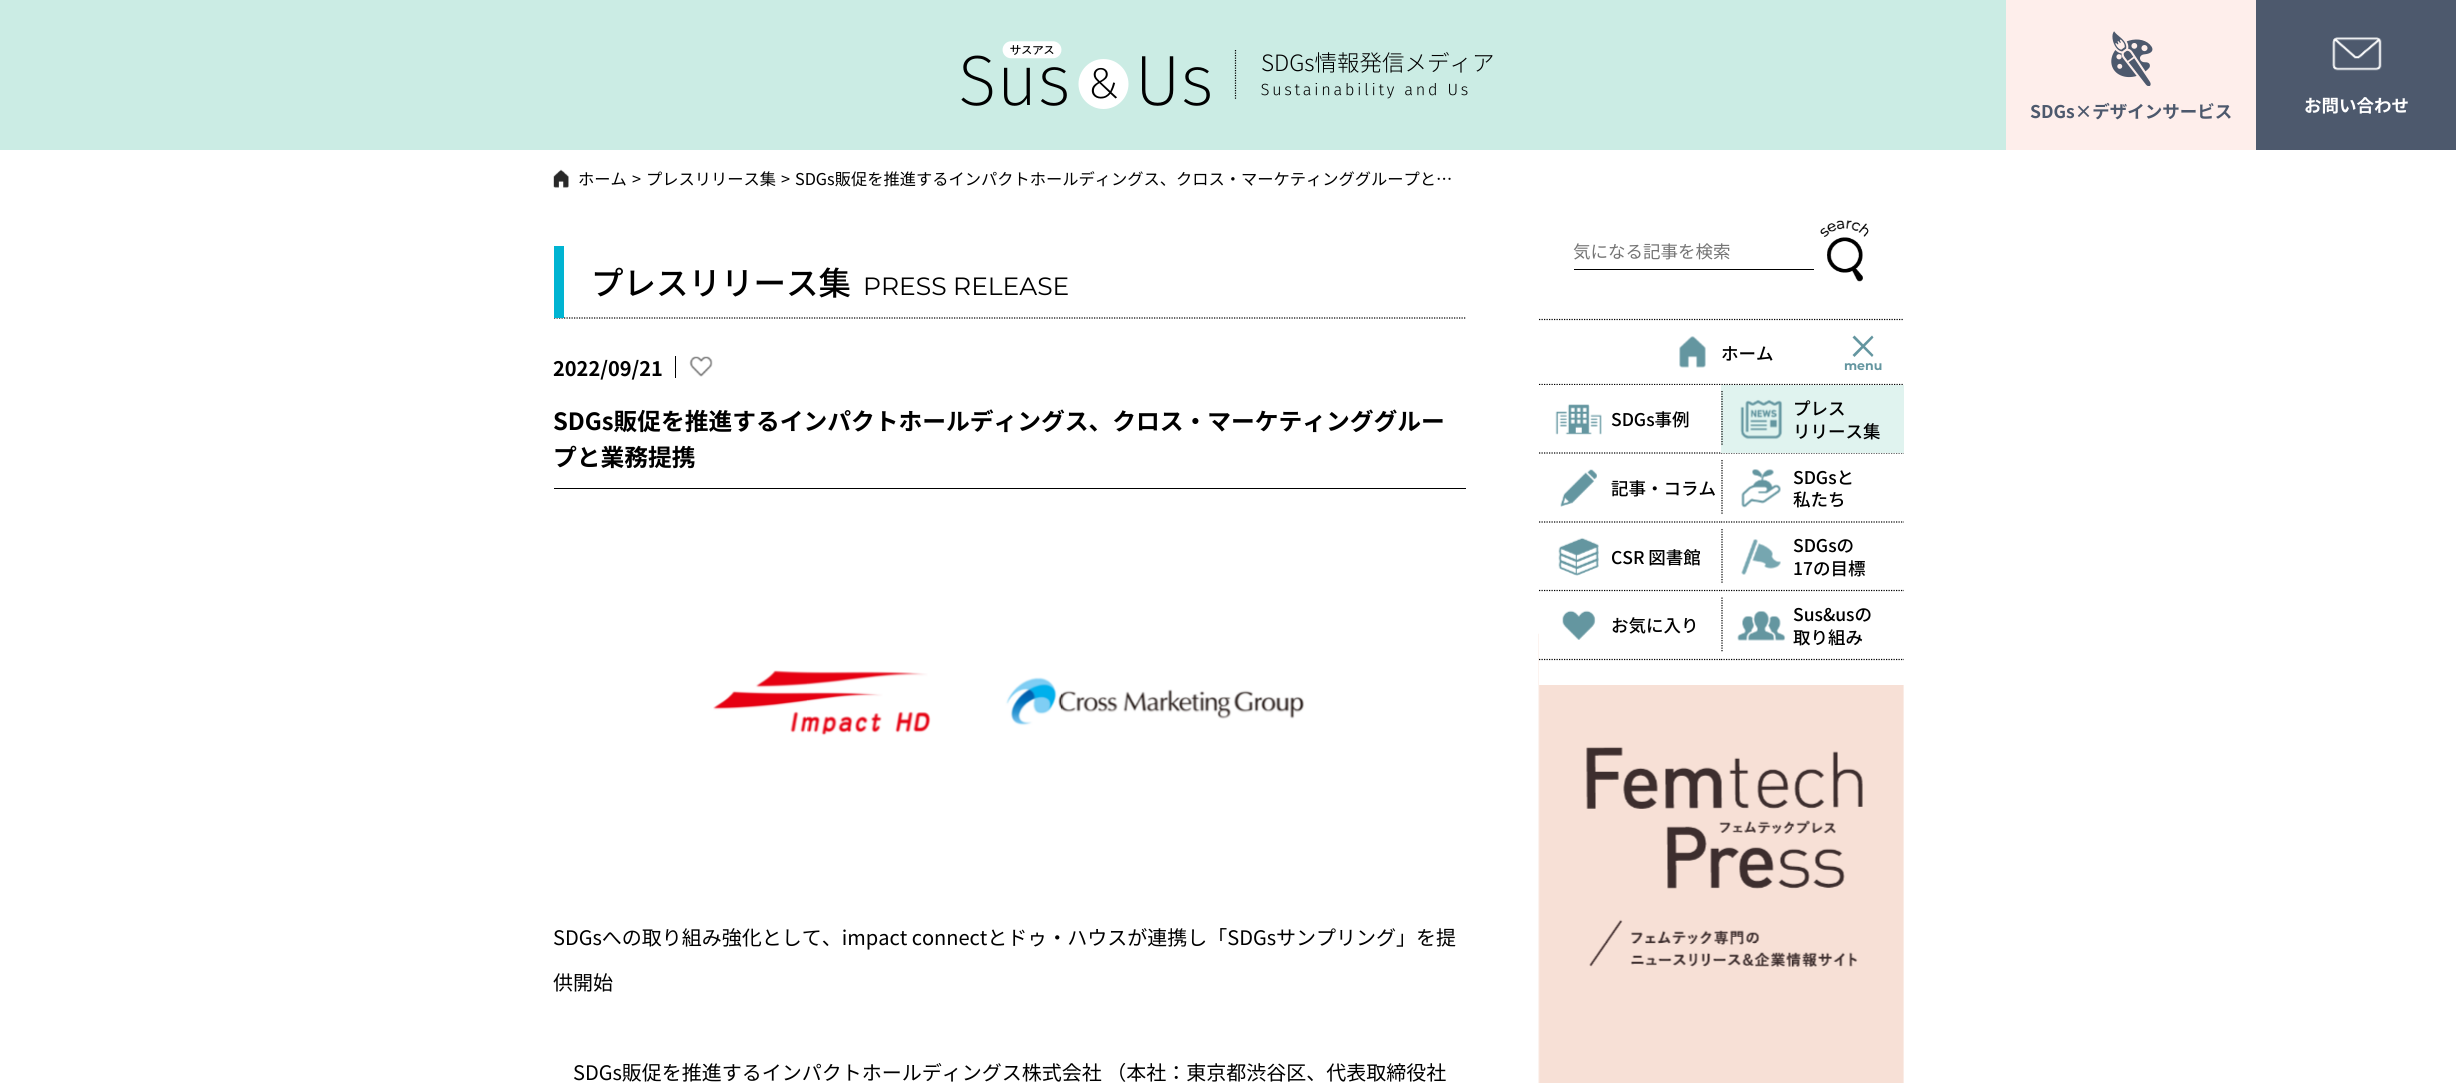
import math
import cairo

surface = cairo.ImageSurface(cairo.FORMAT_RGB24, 2456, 1083)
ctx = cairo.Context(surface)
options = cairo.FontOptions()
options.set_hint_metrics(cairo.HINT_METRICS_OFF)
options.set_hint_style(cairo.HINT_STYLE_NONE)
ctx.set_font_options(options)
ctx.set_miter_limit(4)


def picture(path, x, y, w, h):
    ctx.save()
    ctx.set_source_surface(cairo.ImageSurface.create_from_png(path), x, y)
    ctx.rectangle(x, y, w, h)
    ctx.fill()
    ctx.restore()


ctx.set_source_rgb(1, 1, 1)
ctx.paint()
ctx.set_source_rgb(0.796, 0.922, 0.894)
ctx.rectangle(0, 0, 2006, 150)
ctx.fill()
picture("img1.png", 961, 41, 249, 68)
ctx.new_path()
ctx.move_to(1235.5, 50)
ctx.line_to(1235.5, 100)
ctx.set_source_rgb(0, 0, 0)
ctx.set_line_width(1.2)
ctx.set_dash([1.25, 1.25])
ctx.stroke()
ctx.select_font_face("Noto Sans JP Light")
ctx.set_font_size(22.5)
ctx.move_to(1261, 71)
ctx.show_text("SDGs情報発信メディア")
picture("img2.png", 1261, 83, 207, 16)
ctx.set_source_rgb(0.996, 0.933, 0.918)
ctx.rectangle(2006, 0, 250, 150)
ctx.fill()
picture("img3.png", 2111, 31, 42, 55)
ctx.select_font_face("Noto Sans JP", cairo.FONT_SLANT_NORMAL, cairo.FONT_WEIGHT_BOLD)
ctx.set_font_size(17.5)
ctx.set_source_rgb(0.302, 0.349, 0.427)
ctx.move_to(2030, 118)
ctx.show_text("SDGs×デザインサービス")
ctx.rectangle(2256, 0, 200, 150)
ctx.fill()
picture("img4.png", 2332, 37, 50, 34)
ctx.set_source_rgb(1, 1, 1)
ctx.move_to(2304, 112)
ctx.show_text("お問い合わせ")
picture("img5.png", 553, 169, 16, 19)
ctx.select_font_face("Noto Sans JP")
ctx.set_font_size(16.25)
ctx.set_source_rgb(0, 0, 0)
ctx.move_to(578, 185)
ctx.show_text("ホーム")
ctx.move_to(632, 185)
ctx.show_text(">")
ctx.move_to(646, 185)
ctx.show_text("プレスリリース集")
ctx.move_to(781, 185)
ctx.show_text(">")
ctx.move_to(795, 185)
ctx.show_text("SDGs販促を推進するインパクトホールディングス、クロス・マーケティンググループと…")
ctx.new_path()
ctx.move_to(554, 318)
ctx.line_to(1466, 318)
ctx.stroke()
ctx.set_source_rgb(0, 0.706, 0.824)
ctx.rectangle(554, 246, 10, 72)
ctx.fill()
ctx.select_font_face("Noto Sans JP Medium")
ctx.set_font_size(32.5)
ctx.set_source_rgb(0, 0, 0)
ctx.move_to(591, 295)
ctx.show_text("プレスリリース集")
ctx.select_font_face("Montserrat")
ctx.set_font_size(25)
ctx.move_to(863, 295)
ctx.show_text("PRESS RELEASE")
ctx.select_font_face("Noto Sans JP", cairo.FONT_SLANT_NORMAL, cairo.FONT_WEIGHT_BOLD)
ctx.set_font_size(20)
ctx.move_to(553, 376)
ctx.show_text("2022/09/21")
ctx.rectangle(675, 356, 1, 22)
ctx.fill()
picture("img6.png", 689, 356, 24, 21)
ctx.rectangle(554, 488, 912, 1)
ctx.fill()
ctx.set_font_size(23.75)
ctx.move_to(553, 430)
ctx.show_text("SDGs販促を推進するインパクトホールディングス、クロス・マーケティンググルー")
ctx.move_to(553, 466)
ctx.show_text("プと業務提携")
picture("img7.png", 713, 670, 592, 66)
ctx.select_font_face("Noto Sans JP")
ctx.set_font_size(20)
ctx.move_to(553, 945)
ctx.show_text("SDGsへの取り組み強化として、impact connectとドゥ・ハウスが連携し「SDGsサンプリング」を提")
ctx.move_to(553, 990)
ctx.show_text("供開始")
ctx.move_to(573, 1080)
ctx.show_text("SDGs販促を推進するインパクトホールディングス株式会社 （本社：東京都渋谷区、代表取締役社")
ctx.rectangle(1574, 269, 240, 1)
ctx.fill()
ctx.set_font_size(17.5)
ctx.set_source_rgb(0.459, 0.459, 0.459)
ctx.move_to(1573, 258)
ctx.show_text("気になる記事を検索")
picture("img8.png", 1820, 220, 49, 62)
ctx.new_path()
ctx.move_to(1539, 319.5)
ctx.line_to(1904, 319.5)
ctx.set_source_rgb(0, 0, 0)
ctx.stroke()
ctx.new_path()
ctx.move_to(1539, 384.5)
ctx.line_to(1904, 384.5)
ctx.stroke()
picture("img9.png", 1679, 336, 27, 32)
ctx.select_font_face("Noto Sans JP Medium")
ctx.move_to(1721, 360)
ctx.show_text("ホーム")
ctx.set_source_rgb(0.392, 0.588, 0.627)
ctx.new_path()
ctx.move_to(1854.5, 335.5)
ctx.line_to(1873.5, 355)
ctx.line_to(1872, 357)
ctx.line_to(1852.5, 337.5)
ctx.close_path()
ctx.fill()
ctx.new_path()
ctx.move_to(1852.5, 355)
ctx.line_to(1872, 335.5)
ctx.line_to(1873.5, 337.5)
ctx.line_to(1854.5, 357)
ctx.close_path()
ctx.fill()
ctx.select_font_face("Montserrat", cairo.FONT_SLANT_NORMAL, cairo.FONT_WEIGHT_BOLD)
ctx.set_font_size(12.5)
ctx.move_to(1844, 370)
ctx.show_text("menu")
picture("img18.png", 1538, 633, 366, 450)
ctx.set_source_rgb(1, 1, 1)
ctx.rectangle(1539, 385, 365, 300)
ctx.fill()
ctx.new_path()
ctx.move_to(1539, 453)
ctx.line_to(1721, 453)
ctx.set_source_rgb(0, 0, 0)
ctx.stroke()
picture("img10.png", 1555, 404, 47, 31)
ctx.select_font_face("Noto Sans JP Medium")
ctx.set_font_size(17.5)
ctx.move_to(1611, 426)
ctx.show_text("SDGs事例")
ctx.new_path()
ctx.move_to(1721, 453)
ctx.line_to(1904, 453)
ctx.stroke()
ctx.set_source_rgb(0.878, 0.953, 0.937)
ctx.rectangle(1721, 385, 183, 68)
ctx.fill()
ctx.new_path()
ctx.move_to(1722, 391)
ctx.line_to(1722, 446)
ctx.set_source_rgb(0, 0, 0)
ctx.stroke()
picture("img11.png", 1740, 399, 43, 41)
ctx.move_to(1793, 415)
ctx.show_text("プレス")
ctx.move_to(1793, 438)
ctx.show_text("リリース集")
ctx.new_path()
ctx.move_to(1539, 522)
ctx.line_to(1721, 522)
ctx.stroke()
picture("img12.png", 1560, 469, 37, 38)
ctx.move_to(1611, 495)
ctx.show_text("記事・コラム")
ctx.new_path()
ctx.move_to(1721, 522)
ctx.line_to(1904, 522)
ctx.stroke()
ctx.new_path()
ctx.move_to(1722, 460)
ctx.line_to(1722, 515)
ctx.stroke()
picture("img13.png", 1741, 469, 40, 39)
ctx.move_to(1793, 484)
ctx.show_text("SDGsと")
ctx.move_to(1793, 506)
ctx.show_text("私たち")
ctx.new_path()
ctx.move_to(1539, 590.5)
ctx.line_to(1721, 590.5)
ctx.stroke()
picture("img14.png", 1558, 537, 41, 39)
ctx.move_to(1611, 564)
ctx.show_text("CSR 図書館")
ctx.new_path()
ctx.move_to(1721, 590.5)
ctx.line_to(1904, 590.5)
ctx.stroke()
ctx.new_path()
ctx.move_to(1722, 529)
ctx.line_to(1722, 584)
ctx.stroke()
picture("img15.png", 1741, 539, 40, 36)
ctx.move_to(1793, 552)
ctx.show_text("SDGsの")
ctx.move_to(1793, 575)
ctx.show_text("17の目標")
ctx.new_path()
ctx.move_to(1539, 659.5)
ctx.line_to(1721, 659.5)
ctx.stroke()
picture("img16.png", 1562, 610, 34, 30)
ctx.move_to(1611, 632)
ctx.show_text("お気に入り")
ctx.new_path()
ctx.move_to(1721, 659.5)
ctx.line_to(1904, 659.5)
ctx.stroke()
ctx.new_path()
ctx.move_to(1722, 597.5)
ctx.line_to(1722, 652.5)
ctx.stroke()
picture("img17.png", 1737, 610, 49, 31)
ctx.move_to(1793, 621)
ctx.show_text("Sus&usの")
ctx.move_to(1793, 644)
ctx.show_text("取り組み")
surface.write_to_png("page.png")
